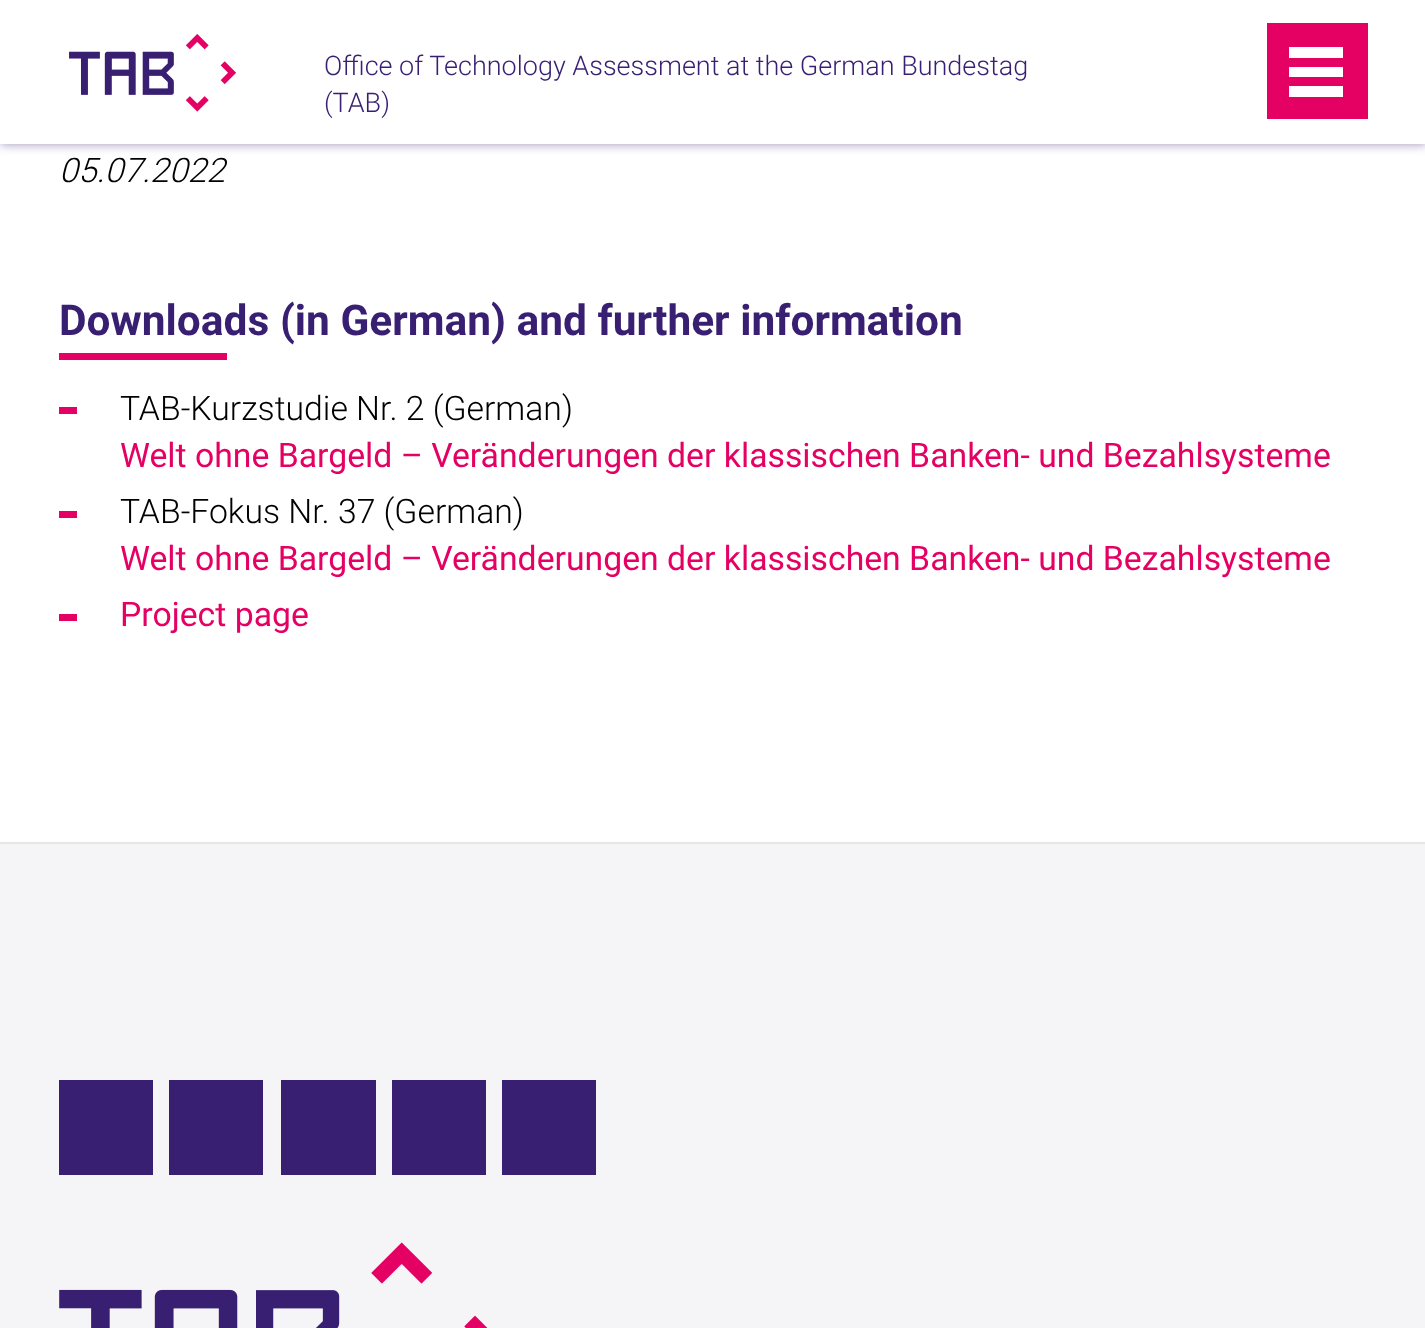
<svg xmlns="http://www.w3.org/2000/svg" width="1425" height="1328">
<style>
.a{font:300 27px Roboto;fill:#381f72}
.b{font:italic 300 33.75px Roboto;fill:#000}
.c{font:bold 42.45px Roboto;fill:#381f72}
.d{font:300 33.75px Roboto;fill:#000}
.e{font:33.75px Roboto;fill:#e50063}
</style>
<rect width="100%" height="100%" fill="#fff"/>
<path fill="#381f7280" filter="blur(5.5px)" d="M0 0h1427v144H0z"/>
<path fill="#fff" d="M0 0h1425v144H0z"/>
<image href="1.png" x="69" y="34" width="167" height="78"/>
<path fill="#e50063" d="M1267 23h101v96H1267z"/>
<path fill="#fff" d="M1289 86h54v11H1289z"/>
<path fill="#fff" d="M1289 67h54v10H1289z"/>
<path fill="#fff" d="M1289 47h54v11H1289z"/>
<path fill="#e50063" d="M59 353h168v7H59z"/>
<path fill="#e50063" d="M59 407h18v7H59z"/>
<path fill="#e50063" d="M59 511h18v7H59z"/>
<path fill="#e50063" d="M59 614h18v7H59z"/>
<path fill="#f5f5f8" d="M0 844h1425v484H0z"/>
<path fill="#e6e6e6" d="M0 842h1425v2H0z"/>
<path fill="#381f72" d="M59 1080h94v95H59z"/>
<path fill="#381f72" d="M169 1080h94v95H169z"/>
<path fill="#381f72" d="M281 1080h95v95H281z"/>
<path fill="#381f72" d="M392 1080h94v95H392z"/>
<path fill="#381f72" d="M502 1080h94v95H502z"/>
<image href="2.png" x="59" y="1242" width="429" height="86"/>
<text class="a" x="324" y="75">Office of Technology Assessment at the German Bundestag</text>
<text class="a" x="324" y="112">(TAB)</text>
<text class="b" x="59" y="182">05.07.2022</text>
<text class="c" x="59" y="335">Downloads (in German) and further information</text>
<text class="d" x="120" y="420">TAB-Kurzstudie Nr. 2 (German)</text>
<text class="e" x="120" y="467">Welt ohne Bargeld – Veränderungen der klassischen Banken- und Bezahlsysteme</text>
<text class="d" x="120" y="523">TAB-Fokus Nr. 37 (German)</text>
<text class="e" x="120" y="570">Welt ohne Bargeld – Veränderungen der klassischen Banken- und Bezahlsysteme</text>
<text class="e" x="120" y="626">Project page</text>
</svg>
